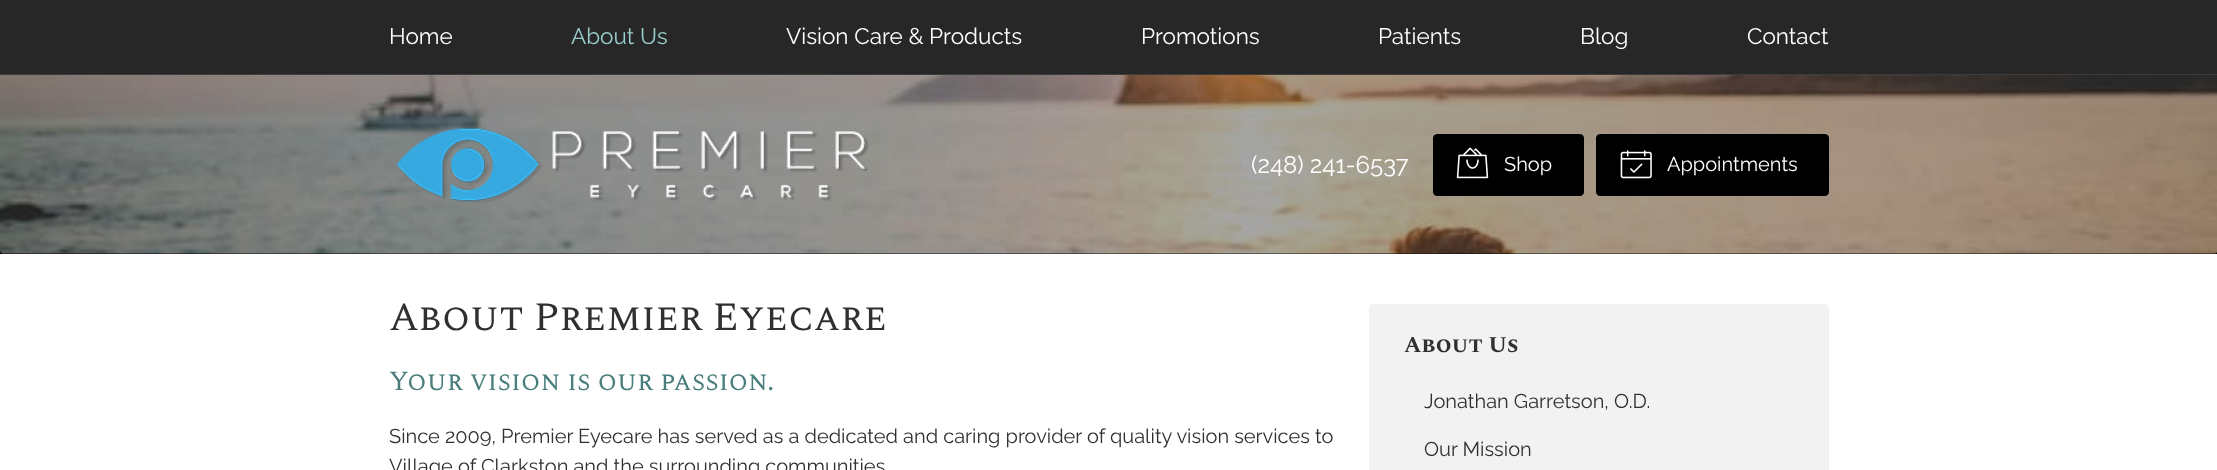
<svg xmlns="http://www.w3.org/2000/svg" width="2217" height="470">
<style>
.a{font:22.5px Raleway;fill:#fff}
.b{font:22.5px Raleway;fill:#99cdcc}
.c{font:24px Raleway;fill:#fff}
.d{font:20px Raleway;fill:#fff}
.e{font:40px Spectral SC;fill:#303030}
.f{font:27.5px Spectral SC;fill:#497e7d}
.g{font:20px Raleway;fill:#303030}
.h{font:bold 22.5px Spectral SC;fill:#303030}
</style>
<rect width="100%" height="100%" fill="#fff"/>
<path fill="#000" d="M0 250h2217v4H0z"/>
<path fill="#262726" d="M0 0h2217v74H0z"/>
<path fill="#3c3d3c" d="M0 74h2217v1H0z"/>
<image href="1.png" x="0" y="75" width="2217" height="179"/>
<image href="2.png" x="396" y="127" width="473" height="76"/>
<rect fill="#000" stroke="#000" x="1433.5" y="134.5" width="150" height="61" rx="3.5"/>
<image href="3.png" x="1456" y="147" width="33" height="32"/>
<rect fill="#000" stroke="#000" x="1596.5" y="134.5" width="232" height="61" rx="3.5"/>
<image href="4.png" x="1620" y="150" width="32" height="29"/>
<rect fill="#f2f2f2" x="1369" y="304" width="460" height="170" rx="4"/>
<text class="a" x="389" y="44">Home</text>
<text class="b" x="571" y="44">About Us</text>
<text class="a" x="786" y="44">Vision Care &amp; Products</text>
<text class="a" x="1141" y="44">Promotions</text>
<text class="a" x="1378" y="44">Patients</text>
<text class="a" x="1580" y="44">Blog</text>
<text class="a" x="1747" y="44">Contact</text>
<text class="c" x="1251" y="173">(248) 241-6537</text>
<text class="d" x="1504" y="171">Shop</text>
<text class="d" x="1667" y="171">Appointments</text>
<text class="e" x="389" y="330">About Premier Eyecare</text>
<text class="f" x="389" y="390">Your vision is our passion.</text>
<text class="g" x="389" y="443">Since 2009, Premier Eyecare has served as a dedicated and caring provider of quality vision services to</text>
<text class="g" x="389" y="473">Village of Clarkston and the surrounding communities</text>
<text class="h" x="1404" y="352">About Us</text>
<text class="g" x="1424" y="408">Jonathan Garretson, O.D.</text>
<text class="g" x="1424" y="456">Our Mission</text>
</svg>
